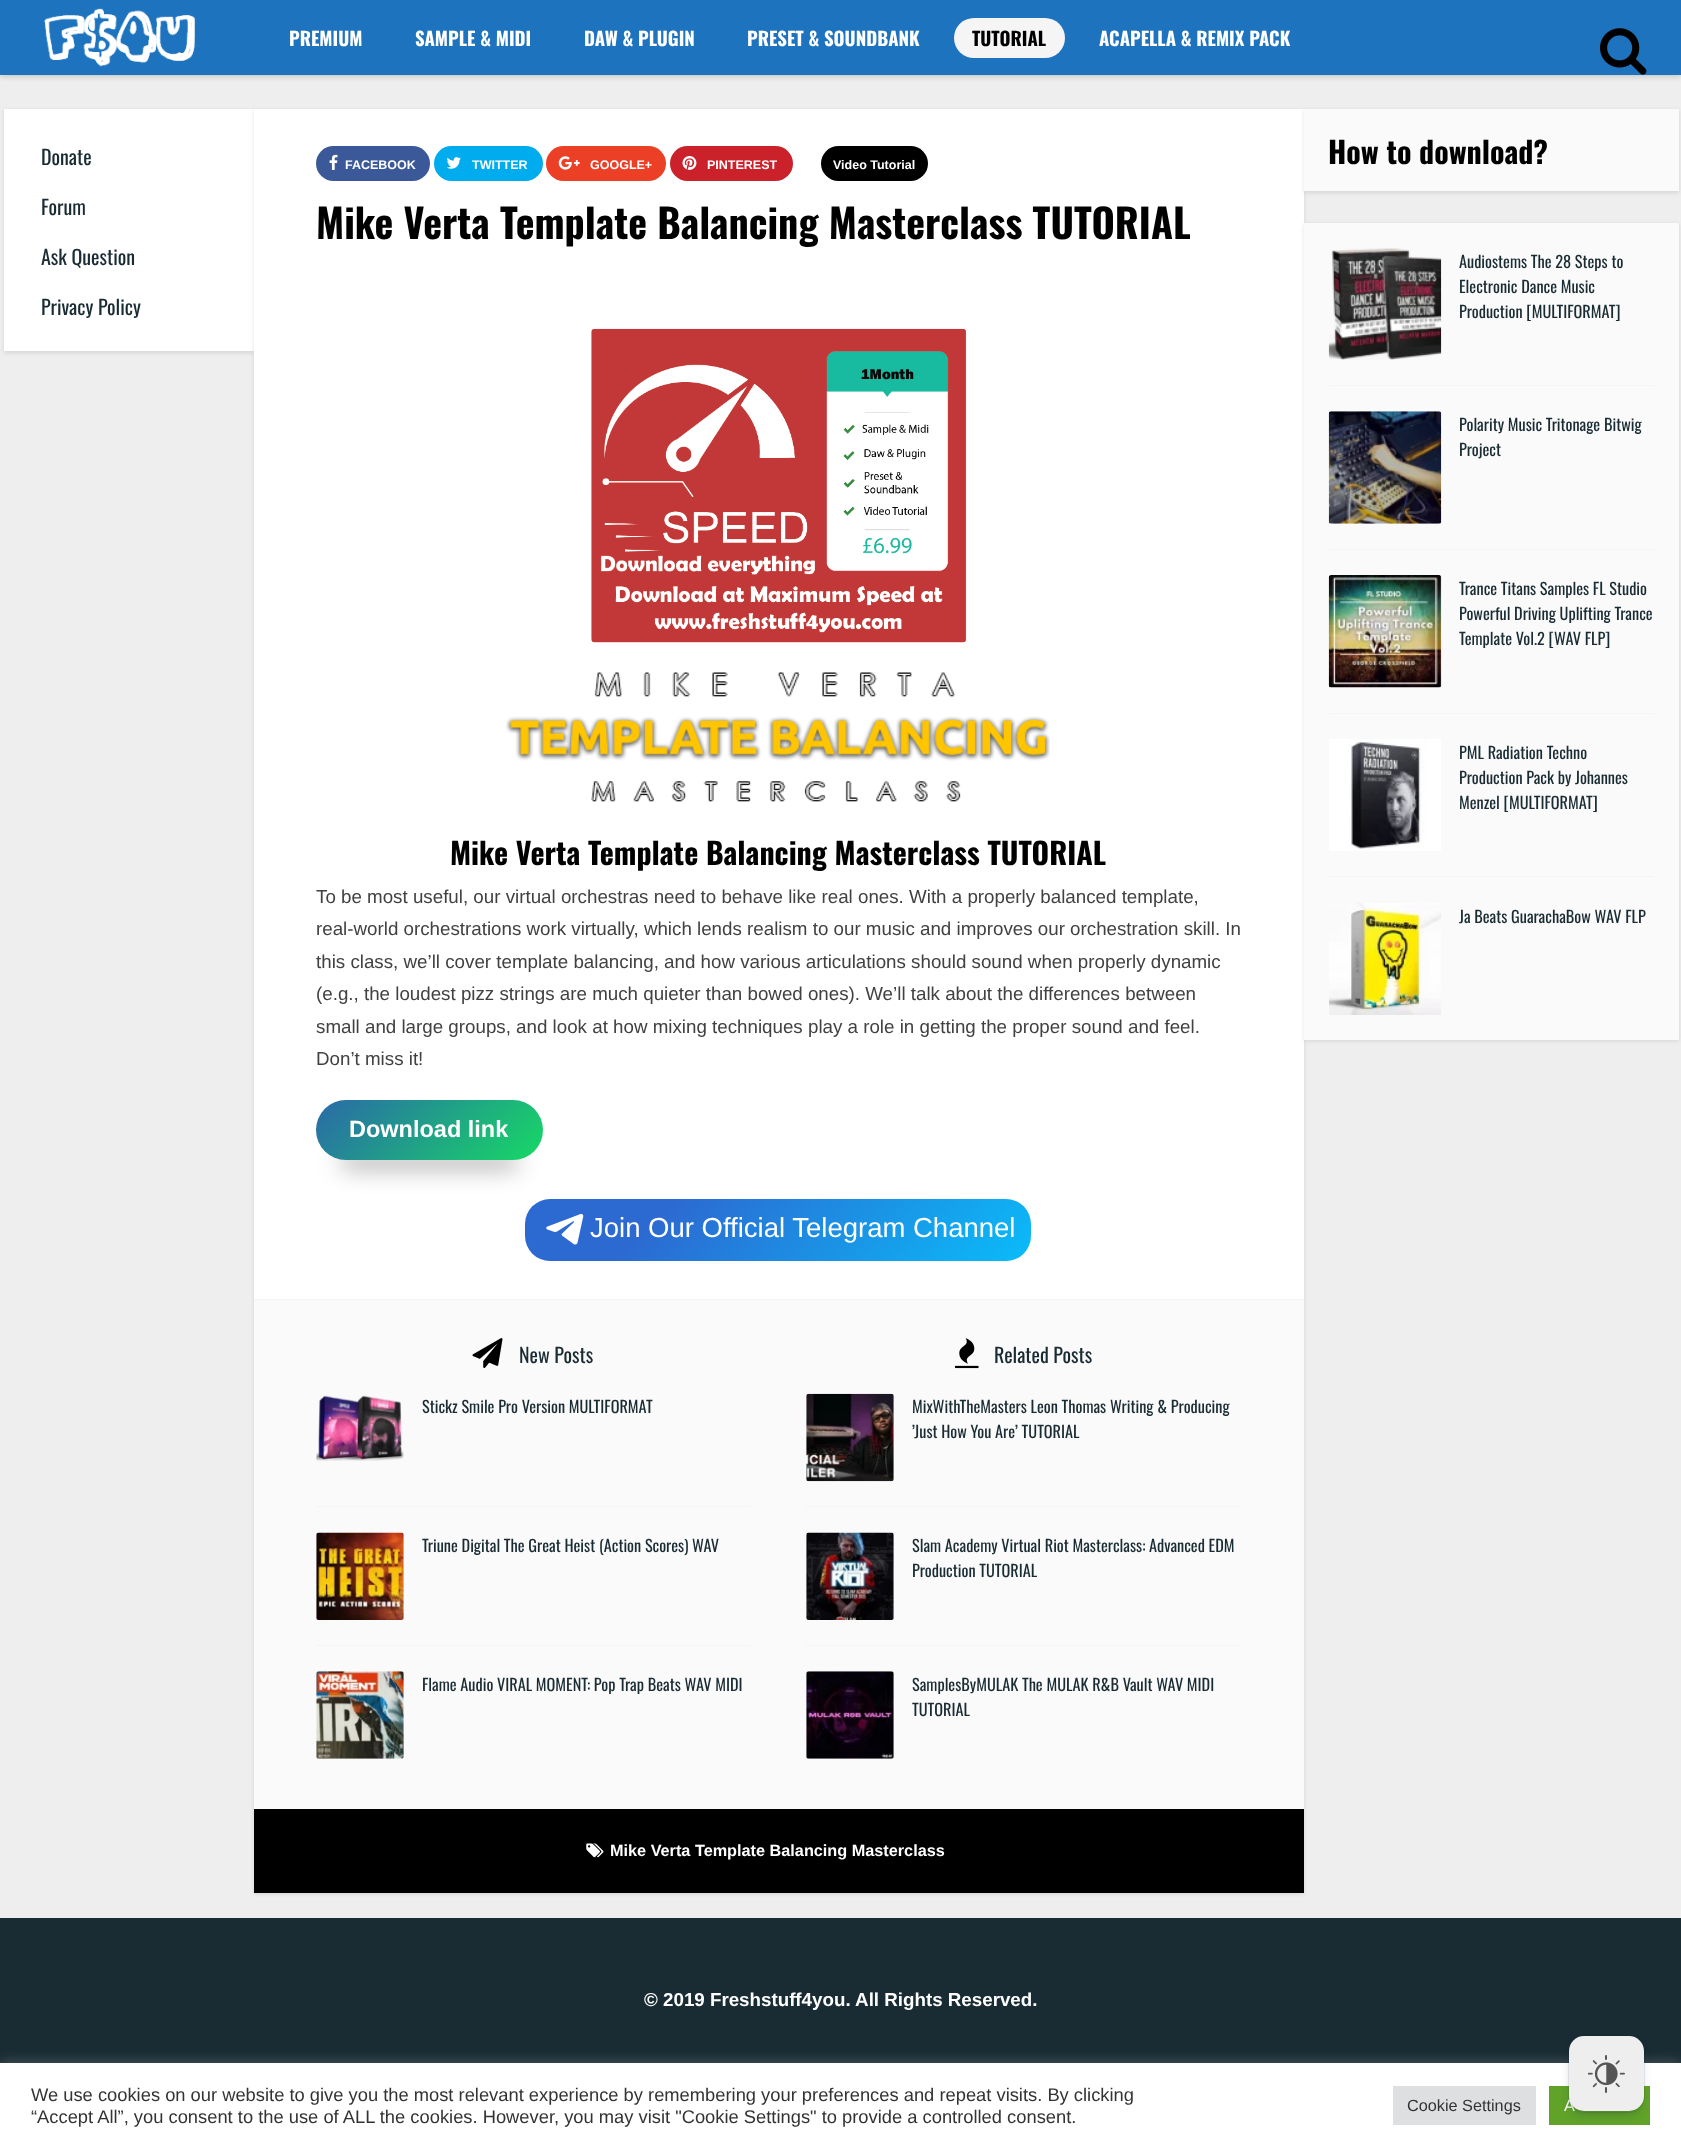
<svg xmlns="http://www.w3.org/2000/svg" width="1681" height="2148">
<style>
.a{font:bold 18.75px Oswald;fill:#fff}
.b{font:bold 18.75px Oswald;fill:#000}
.c{font:20px Oswald;fill:#192b33}
.d{font:bold 12.5px Liberation Sans;fill:#fff}
.e{font:bold 40px Oswald;fill:#000}
.f{font:bold 30px Oswald;fill:#000}
.g{font:18.75px Liberation Sans;fill:#414141}
.h{font:bold 23.5px Liberation Sans;fill:#fff}
.i{font:27.5px Liberation Sans;fill:#fff}
.j{font:16.25px Oswald;fill:#192b33}
.k{font:bold 16.25px Liberation Sans;fill:#fff}
.l{font:bold 18.75px Liberation Sans;fill:#fff}
.m{font:18.33px Liberation Sans;fill:#333}
.n{font:16.25px Liberation Sans;fill:#333}
.o{font:16.25px Liberation Sans;fill:#fff}
</style>
<defs>
<linearGradient id="g1" gradientUnits="userSpaceOnUse" x1="920" y1="1372" x2="636" y2="1088"><stop offset="0" stop-color="#0abcf9"/><stop offset="0.74" stop-color="#2c69d1"/></linearGradient>
<linearGradient id="g2" gradientUnits="userSpaceOnUse" x1="358" y1="1058" x2="501" y2="1202"><stop offset="0" stop-color="#2a69a8"/><stop offset="1" stop-color="#17d965"/></linearGradient>
</defs>
<rect width="100%" height="100%" fill="#eee"/>
<path fill="#0000001a" filter="blur(3px)" d="M0 1h1681v75H0z"/>
<path fill="#0000001a" filter="blur(3px)" d="M0 1h1681v75H0z"/>
<path fill="#1e73be" d="M0 0h1681v75H0z"/>
<image href="1.png" x="44" y="8" width="151" height="59"/>
<rect fill="#f5f5f5" x="954" y="18" width="111" height="40" rx="20"/>
<image href="2.png" x="1600" y="28" width="47" height="47"/>
<path fill="#0000001a" filter="blur(2px)" d="M4 110h250v243H4z"/>
<path fill="#fff" d="M4 109h250v242H4z"/>
<path fill="#0000001a" filter="blur(2px)" d="M254 110h1050v1784H254z"/>
<path fill="#fff" d="M254 109h1050v1190H254z"/>
<rect fill="#3b5998" x="316" y="146" width="114" height="35" rx="17.5"/>
<image href="3.png" x="329" y="154" width="9" height="16"/>
<rect fill="#00aced" x="434" y="146" width="109" height="35" rx="17.5"/>
<image href="4.png" x="446" y="157" width="15" height="12"/>
<rect fill="#eb4026" x="546" y="146" width="120" height="35" rx="17.5"/>
<image href="5.png" x="558" y="156" width="22" height="14"/>
<rect fill="#ca212a" x="670" y="146" width="123" height="35" rx="17.5"/>
<image href="6.png" x="682" y="156" width="15" height="14"/>
<rect fill="#000" x="821" y="146" width="107" height="35" rx="17.5"/>
<image href="7.png" x="591" y="328" width="376" height="315"/>
<image href="8.png" x="506" y="672" width="544" height="130"/>
<rect fill="url(#g1)" x="525" y="1199" width="506" height="62" rx="25"/>
<rect fill="#00000080" filter="blur(12.5px)" x="341" y="1156" width="177" height="10" rx="5"/>
<rect fill="url(#g2)" x="316" y="1100" width="227" height="60" rx="30"/>
<image href="9.png" x="546" y="1213" width="38" height="32"/>
<path fill="#fafafa" d="M254 1300h1050v509H254z"/>
<path fill="#f5f4f4" d="M254 1299h1050v1H254z"/>
<image href="10.png" x="472" y="1338" width="31" height="30"/>
<path fill="#f5f4f4" d="M316 1506h434v1H316z"/>
<image href="11.png" x="316" y="1395" width="88" height="66"/>
<path fill="#f5f4f4" d="M316 1645h434v1H316z"/>
<image href="12.png" x="316" y="1532" width="88" height="88"/>
<image href="13.png" x="316" y="1671" width="88" height="88"/>
<image href="14.png" x="955" y="1338" width="24" height="31"/>
<path fill="#f5f4f4" d="M806 1506h434v1H806z"/>
<image href="15.png" x="806" y="1393" width="88" height="89"/>
<path fill="#f5f4f4" d="M806 1645h434v1H806z"/>
<image href="16.png" x="806" y="1532" width="88" height="88"/>
<image href="17.png" x="806" y="1671" width="88" height="88"/>
<path fill="#000" d="M254 1809h1050v84H254z"/>
<image href="18.png" x="586" y="1843" width="18" height="15"/>
<path fill="#0000001a" filter="blur(2px)" d="M1304 110h375v83H1304z"/>
<path fill="#fafafa" d="M1304 109h375v82H1304z"/>
<path fill="#0000001a" filter="blur(2px)" d="M1304 224h375v817H1304z"/>
<path fill="#fafafa" d="M1304 223h375v817H1304z"/>
<path fill="#f5f4f4" d="M1329 385h325v1H1329z"/>
<image href="19.png" x="1328" y="248" width="114" height="112"/>
<path fill="#f5f4f4" d="M1329 549h325v1H1329z"/>
<image href="20.png" x="1328" y="411" width="114" height="113"/>
<path fill="#f5f4f4" d="M1329 713h325v1H1329z"/>
<image href="21.png" x="1328" y="575" width="114" height="113"/>
<path fill="#f5f4f4" d="M1329 876h325v1H1329z"/>
<image href="22.png" x="1329" y="739" width="112" height="112"/>
<image href="23.png" x="1329" y="903" width="112" height="112"/>
<path fill="#192b33" d="M0 1918h1681v145H0z"/>
<path fill="#acabab4d" filter="blur(6px)" d="M0 2061h1681v87H0z"/>
<path fill="#fff" d="M0 2063h1681v85H0z"/>
<path fill="#dedfe0" d="M1393 2086h143v39H1393z"/>
<path fill="#61a229" d="M1549 2086h101v39H1549z"/>
<text class="a" x="289" y="46">PREMIUM</text>
<text class="a" x="415" y="46">SAMPLE &amp; MIDI</text>
<text class="a" x="584" y="46">DAW &amp; PLUGIN</text>
<text class="a" x="747" y="46">PRESET &amp; SOUNDBANK</text>
<text class="b" x="972" y="46">TUTORIAL</text>
<text class="a" x="1099" y="46">ACAPELLA &amp; REMIX PACK</text>
<text class="c" x="41" y="165">Donate</text>
<text class="c" x="41" y="215">Forum</text>
<text class="c" x="41" y="265">Ask Question</text>
<text class="c" x="41" y="315">Privacy Policy</text>
<text class="d" x="345" y="169">FACEBOOK</text>
<text class="d" x="472" y="169">TWITTER</text>
<text class="d" x="590" y="169">GOOGLE+</text>
<text class="d" x="707" y="169">PINTEREST</text>
<text class="d" x="833" y="169">Video Tutorial</text>
<text class="e" x="316" y="239">Mike Verta Template Balancing Masterclass TUTORIAL</text>
<text class="f" x="450" y="865">Mike Verta Template Balancing Masterclass TUTORIAL</text>
<text class="g" x="316" y="903">To be most useful, our virtual orchestras need to behave like real ones. With a properly balanced template,</text>
<text class="g" x="316" y="935">real-world orchestrations work virtually, which lends realism to our music and improves our orchestration skill. In</text>
<text class="g" x="316" y="968">this class, we’ll cover template balancing, and how various articulations should sound when properly dynamic</text>
<text class="g" x="316" y="1000">(e.g., the loudest pizz strings are much quieter than bowed ones). We’ll talk about the differences between</text>
<text class="g" x="316" y="1033">small and large groups, and look at how mixing techniques play a role in getting the proper sound and feel.</text>
<text class="g" x="316" y="1065">Don’t miss it!</text>
<text class="h" x="349" y="1137">Download link</text>
<text class="i" x="590" y="1237">Join Our Official Telegram Channel</text>
<text class="c" x="519" y="1363">New Posts</text>
<text class="j" x="422" y="1413">Stickz Smile Pro Version MULTIFORMAT</text>
<text class="j" x="422" y="1552">Triune Digital The Great Heist (Action Scores) WAV</text>
<text class="j" x="422" y="1691">Flame Audio VIRAL MOMENT: Pop Trap Beats WAV MIDI</text>
<text class="c" x="994" y="1363">Related Posts</text>
<text class="j" x="912" y="1413">MixWithTheMasters Leon Thomas Writing &amp; Producing</text>
<text class="j" x="912" y="1438">’Just How You Are’ TUTORIAL</text>
<text class="j" x="912" y="1552">Slam Academy Virtual Riot Masterclass: Advanced EDM</text>
<text class="j" x="912" y="1577">Production TUTORIAL</text>
<text class="j" x="912" y="1691">SamplesByMULAK The MULAK R&amp;B Vault WAV MIDI</text>
<text class="j" x="912" y="1716">TUTORIAL</text>
<text class="k" x="610" y="1856">Mike Verta Template Balancing Masterclass</text>
<text class="f" x="1328" y="164">How to download?</text>
<text class="j" x="1459" y="268">Audiostems The 28 Steps to</text>
<text class="j" x="1459" y="293">Electronic Dance Music</text>
<text class="j" x="1459" y="318">Production [MULTIFORMAT]</text>
<text class="j" x="1459" y="431">Polarity Music Tritonage Bitwig</text>
<text class="j" x="1459" y="456">Project</text>
<text class="j" x="1459" y="595">Trance Titans Samples FL Studio</text>
<text class="j" x="1459" y="620">Powerful Driving Uplifting Trance</text>
<text class="j" x="1459" y="645">Template Vol.2 [WAV FLP]</text>
<text class="j" x="1459" y="759">PML Radiation Techno</text>
<text class="j" x="1459" y="784">Production Pack by Johannes</text>
<text class="j" x="1459" y="809">Menzel [MULTIFORMAT]</text>
<text class="j" x="1459" y="923">Ja Beats GuarachaBow WAV FLP</text>
<text class="l" x="644" y="2006">© 2019 Freshstuff4you. All Rights Reserved.</text>
<text class="m" x="31" y="2101">We use cookies on our website to give you the most relevant experience by remembering your preferences and repeat visits. By clicking</text>
<text class="m" x="31" y="2123">“Accept All”, you consent to the use of ALL the cookies. However, you may visit "Cookie Settings" to provide a controlled consent.</text>
<text class="n" x="1407" y="2111">Cookie Settings</text>
<text class="o" x="1564" y="2111">A</text>
<rect fill="none" stroke="#091e4214" x="1568.5" y="2035.5" width="76" height="77" rx="15.5"/>
<rect fill="#091e4240" filter="blur(5px)" x="1571" y="2044" width="70" height="70" rx="13"/>
<rect fill="#eee" x="1569" y="2036" width="75" height="75" rx="15"/>
<image href="24.png" x="1588" y="2055" width="37" height="38"/>
</svg>
